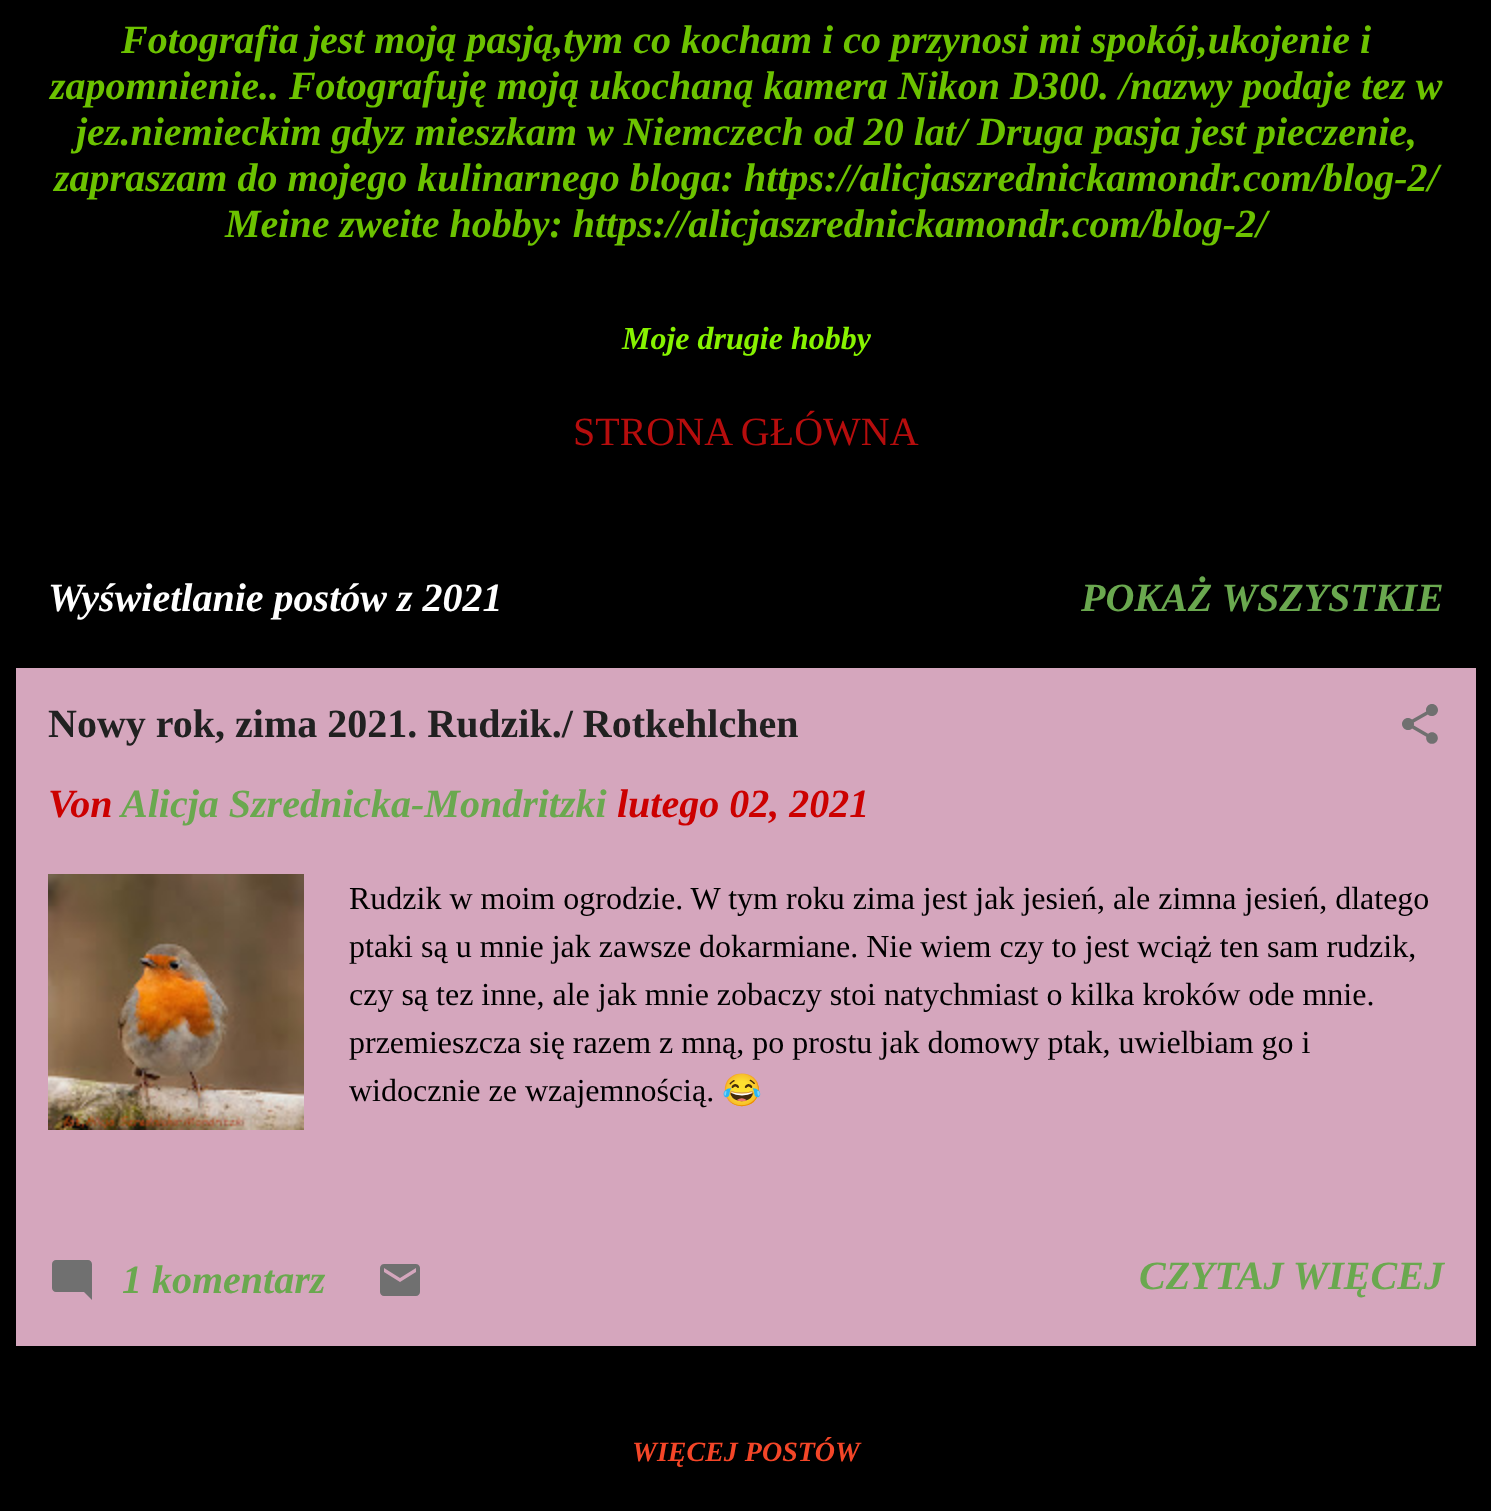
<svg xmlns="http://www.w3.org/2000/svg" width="1491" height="1511">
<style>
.a{font:italic bold 40px Liberation Serif;fill:#6cc200}
.b{font:italic bold 32px Liberation Serif;fill:#87f300}
.c{font:40px Liberation Serif;fill:#b60d0d}
.d{font:italic bold 40px Liberation Serif;fill:#fff}
.e{font:italic bold 40px Liberation Serif;fill:#6aa84f}
.f{font:bold 40px Liberation Serif;fill:#212121}
.g{font:italic bold 40px Liberation Serif;fill:#c00}
.h{font:32px Liberation Serif;fill:#000}
.i{font:32px Noto Color Emoji;fill:#000}
.j{font:italic bold 28px Liberation Serif;fill:#f44628}
</style>
<rect width="100%" height="100%" fill="#000"/>
<path fill="#d5a6bd" d="M16 668h1460v678H16z"/>
<image href="1.png" x="1402" y="704" width="36" height="40"/>
<image href="2.png" x="48" y="874" width="256" height="256"/>
<image href="3.png" x="52" y="1260" width="40" height="40"/>
<image href="4.png" x="380" y="1264" width="40" height="32"/>
<text class="a" x="121" y="53">Fotografia jest moją pasją,tym co kocham i co przynosi mi spokój,ukojenie i</text>
<text class="a" x="50" y="99">zapomnienie.. Fotografuję moją ukochaną kamera Nikon D300. /nazwy podaje tez w</text>
<text class="a" x="76" y="145">jez.niemieckim gdyz mieszkam w Niemczech od 20 lat/ Druga pasja jest pieczenie,</text>
<text class="a" x="54" y="191">zapraszam do mojego kulinarnego bloga: https://alicjaszrednickamondr.com/blog-2/</text>
<text class="a" x="225" y="237">Meine zweite hobby: https://alicjaszrednickamondr.com/blog-2/</text>
<text class="b" x="622" y="349">Moje drugie hobby</text>
<text class="c" x="573" y="445">STRONA GŁÓWNA</text>
<text class="d" x="48" y="611">Wyświetlanie postów z 2021</text>
<text class="e" x="1081" y="611">POKAŻ WSZYSTKIE</text>
<text class="f" x="48" y="737">Nowy rok, zima 2021. Rudzik./ Rotkehlchen</text>
<text class="g" x="48" y="817">Von</text>
<text class="e" x="121" y="817">Alicja Szrednicka-Mondritzki</text>
<text class="g" x="617" y="817">lutego 02, 2021</text>
<text class="h" x="349" y="909">Rudzik w moim ogrodzie. W tym roku zima jest jak jesień, ale zimna jesień, dlatego</text>
<text class="h" x="349" y="957">ptaki są u mnie jak zawsze dokarmiane. Nie wiem czy to jest wciąż ten sam rudzik,</text>
<text class="h" x="349" y="1005">czy są tez inne, ale jak mnie zobaczy stoi natychmiast o kilka kroków ode mnie.</text>
<text class="h" x="349" y="1053">przemieszcza się razem z mną, po prostu jak domowy ptak, uwielbiam go i</text>
<text class="h" x="349" y="1101">widocznie ze wzajemnością.</text>
<text class="i" x="722" y="1101">😂</text>
<text class="e" x="122" y="1293">1 komentarz</text>
<text class="e" x="1139" y="1289">CZYTAJ WIĘCEJ</text>
<text class="j" x="632" y="1461">WIĘCEJ POSTÓW</text>
</svg>
